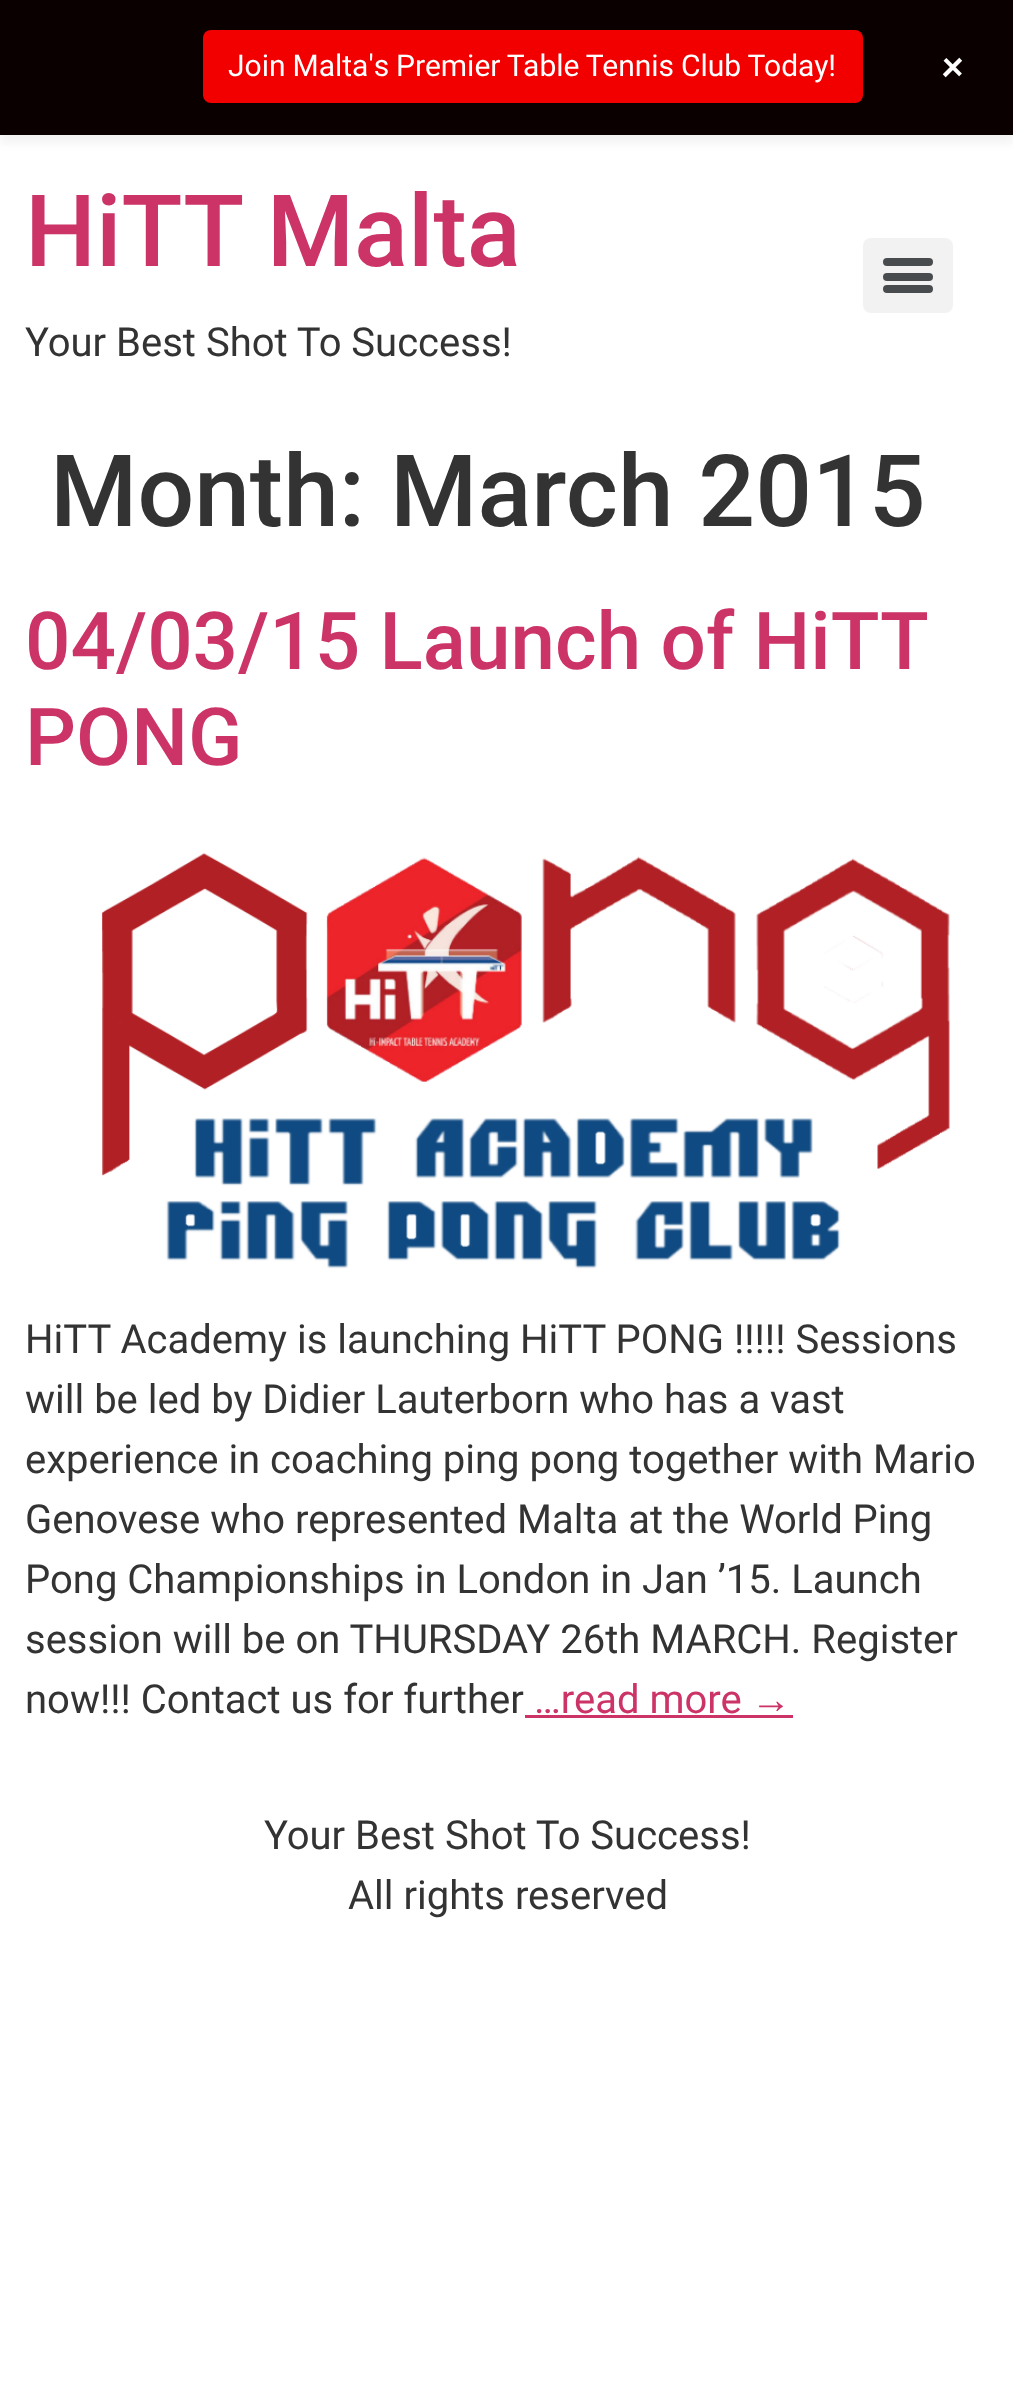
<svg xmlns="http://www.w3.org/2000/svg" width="1013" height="2402">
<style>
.a{font:30px Roboto;fill:#fff}
.b{font:45px Roboto;fill:#fff}
.c{font:500 100px Roboto;fill:#c36}
.d{font:40px Roboto;fill:#333}
.e{font:500 100px Roboto;fill:#333}
.f{font:500 80px Roboto;fill:#c36}
.g{font:40px Roboto;fill:#c36}
.h{font:40px Liberation Sans;fill:#c36}
</style>
<rect width="100%" height="100%" fill="#fff"/>
<path fill="#0000000d" filter="blur(5px)" d="M0 8h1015v135H0z"/>
<path fill="#0a0000" d="M0 0h1013v135H0z"/>
<rect fill="#f20000" x="203" y="30" width="660" height="73" rx="8"/>
<rect fill="#f2f2f2" x="863" y="238" width="90" height="75" rx="8"/>
<rect fill="#494c4f" x="883" y="273" width="50" height="8" rx="4"/>
<rect fill="#494c4f" x="883" y="258" width="50" height="8" rx="4"/>
<rect fill="#494c4f" x="883" y="285" width="50" height="8" rx="4"/>
<image href="1.png" x="102" y="853" width="848" height="416"/>
<path fill="#c36" d="M525 1715h268v3H525z"/>
<text class="a" x="228" y="76" word-spacing="-0.5">Join Malta's Premier Table Tennis Club Today!</text>
<text class="b" x="933" y="69" transform="rotate(45 933 69)">+</text>
<text class="c" x="25" y="266">HiTT Malta</text>
<text class="d" x="25" y="356">Your Best Shot To Success!</text>
<text class="e" x="50" y="526">Month: March 2015</text>
<text class="f" x="25" y="669" word-spacing="-0.5">04/03/15 Launch of HiTT</text>
<text class="f" x="25" y="765">PONG</text>
<text class="d" x="25" y="1353">HiTT Academy is launching HiTT PONG !!!!! Sessions</text>
<text class="d" x="25" y="1413">will be led by Didier Lauterborn who has a vast</text>
<text class="d" x="25" y="1473">experience in coaching ping pong together with Mario</text>
<text class="d" x="25" y="1533">Genovese who represented Malta at the World Ping</text>
<text class="d" x="25" y="1593">Pong Championships in London in Jan ’15. Launch</text>
<text class="d" x="25" y="1653">session will be on THURSDAY 26th MARCH. Register</text>
<text class="d" x="25" y="1713">now!!! Contact us for further</text>
<text class="g" x="534" y="1713">…read more</text>
<text class="h" x="751" y="1713">→</text>
<text class="d" x="264" y="1849">Your Best Shot To Success!</text>
<text class="d" x="348" y="1909">All rights reserved</text>
</svg>
